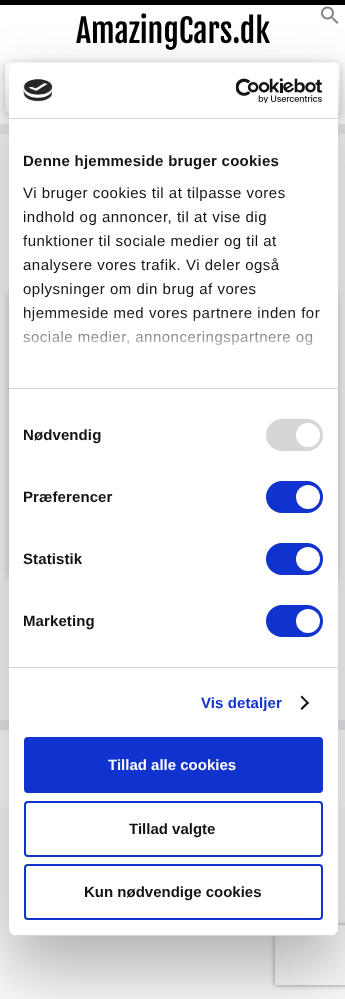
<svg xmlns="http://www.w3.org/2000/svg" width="345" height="999">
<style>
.a{font:32px Fjalla One;fill:#000}
.b{font:bold 15px Liberation Sans;letter-spacing:0.25px;fill:#141414}
.c{font:15px Liberation Sans;letter-spacing:0.5px;fill:#141414}
.d{font:bold 15px Liberation Sans;letter-spacing:0.1px;fill:#141414}
.e{font:bold 15px Liberation Sans;letter-spacing:0.1px;fill:#1032cf}
.f{font:bold 15px Liberation Sans;fill:#fff}
.g{font:bold 15px Liberation Sans;fill:#141414}
</style>
<defs>
<linearGradient id="g1" gradientUnits="userSpaceOnUse" x1="173" y1="62" x2="173" y2="113"><stop offset="0" stop-color="#fff"/><stop offset="1" stop-color="#f2f2f2"/></linearGradient>
<clipPath id="clip1"><path d="M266 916h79v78h-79zm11 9h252c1 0 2 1 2 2v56c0 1-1 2-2 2h-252c-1 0-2-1-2-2v-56c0-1 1-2 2-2z" clip-rule="evenodd"/></clipPath>
<clipPath id="clip2"><rect x="9" y="63" width="329" height="873" rx="8"/></clipPath>
<linearGradient id="g2" gradientUnits="userSpaceOnUse" x1="167" y1="388" x2="167" y2="313"><stop offset="0" stop-color="#fff"/><stop offset="0.5" stop-color="#fff" stop-opacity="0.8"/><stop offset="1" stop-color="#fff" stop-opacity="0"/></linearGradient>
</defs>
<rect width="100%" height="100%" fill="#fafafa"/>
<path fill="#fff" d="M0 5h345v119H0z"/>
<path fill="#000" d="M0 0h345v5H0z"/>
<path fill="#e9eaee" d="M0 124h345v10H0z"/>
<rect fill="#00000040" filter="blur(5px)" x="5" y="64" width="335" height="51" rx="4"/>
<rect fill="url(#g1)" x="5" y="62" width="335" height="51" rx="4"/>
<path fill="#ccc" filter="blur(3px)" d="M8 293h329v285H8z"/>
<path fill="#e9eaee" d="M0 720h345v10H0z"/>
<path fill="#fff" d="M0 730h345v77H0z"/>
<image href="1.png" x="321" y="6" width="18" height="18"/>
<rect fill="#0000004d" filter="blur(34px)" x="9" y="95" width="329" height="873" rx="8"/>
<g clip-path="url(#clip1)">
<rect fill="#808080" filter="blur(2.5px)" x="275" y="925" width="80" height="60" rx="2"/>
</g>
<rect fill="#fff" x="9" y="63" width="329" height="873" rx="8"/>
<path fill="#d6d6d6" d="M9 118h329v1H9z"/>
<image href="2.png" x="23" y="79" width="30" height="23"/>
<image href="3.png" x="236" y="78" width="86" height="25"/>
<path fill="#d6d6d6" d="M9 388h329v1H9z"/>
<path fill="#d6d6d6" d="M9 667h329v1H9z"/>
<rect fill="#d6d6d6" x="266" y="419" width="57" height="32" rx="16"/>
<circle fill="#fff" cx="308" cy="435" r="12"/>
<rect fill="#1032cf" x="266" y="481" width="57" height="32" rx="16"/>
<circle fill="#fff" cx="308" cy="497" r="12"/>
<rect fill="#1032cf" x="266" y="543" width="57" height="32" rx="16"/>
<circle fill="#fff" cx="308" cy="559" r="12"/>
<rect fill="#1032cf" x="266" y="605" width="57" height="32" rx="16"/>
<circle fill="#fff" cx="308" cy="621" r="12"/>
<path fill="#141414" d="M302 695.5l7 7.5l-1.5 1l-7-7z"/>
<path fill="#141414" d="M307.5 701.5l1.5 1.5l-7 7l-1.5-1.5z"/>
<g clip-path="url(#clip2)">
<path fill="#d6d6d6" d="M9 935h329v1H9z"/>
</g>
<rect fill="#1032cf" stroke="#1032cf" stroke-width="2" x="25" y="738" width="297" height="54" rx="3"/>
<rect fill="none" stroke="#1032cf" stroke-width="2" x="25" y="802" width="297" height="54" rx="3"/>
<rect fill="none" stroke="#1032cf" stroke-width="2" x="25" y="865" width="297" height="54" rx="3"/>
<text class="a" x="76" y="43">AmazingCars.dk</text>
<text class="b" x="23" y="166">Denne hjemmeside bruger cookies</text>
<text class="c" x="23" y="198">Vi bruger cookies til at tilpasse vores</text>
<text class="c" x="23" y="222">indhold og annoncer, til at vise dig</text>
<text class="c" x="23" y="246">funktioner til sociale medier og til at</text>
<text class="c" x="23" y="270">analysere vores trafik. Vi deler også</text>
<text class="c" x="23" y="294">oplysninger om din brug af vores</text>
<text class="c" x="23" y="318">hjemmeside med vores partnere inden for</text>
<text class="c" x="23" y="342">sociale medier, annonceringspartnere og</text>
<path fill="url(#g2)" d="M23 314h294v32H23z"/>
<text class="d" x="23" y="440">Nødvendig</text>
<text class="d" x="23" y="502">Præferencer</text>
<text class="d" x="23" y="564">Statistik</text>
<text class="d" x="23" y="626">Marketing</text>
<text class="e" x="201" y="708">Vis detaljer</text>
<text class="f" x="108" y="770">Tillad alle cookies</text>
<text class="g" x="129" y="834">Tillad valgte</text>
<text class="g" x="84" y="897">Kun nødvendige cookies</text>
</svg>
